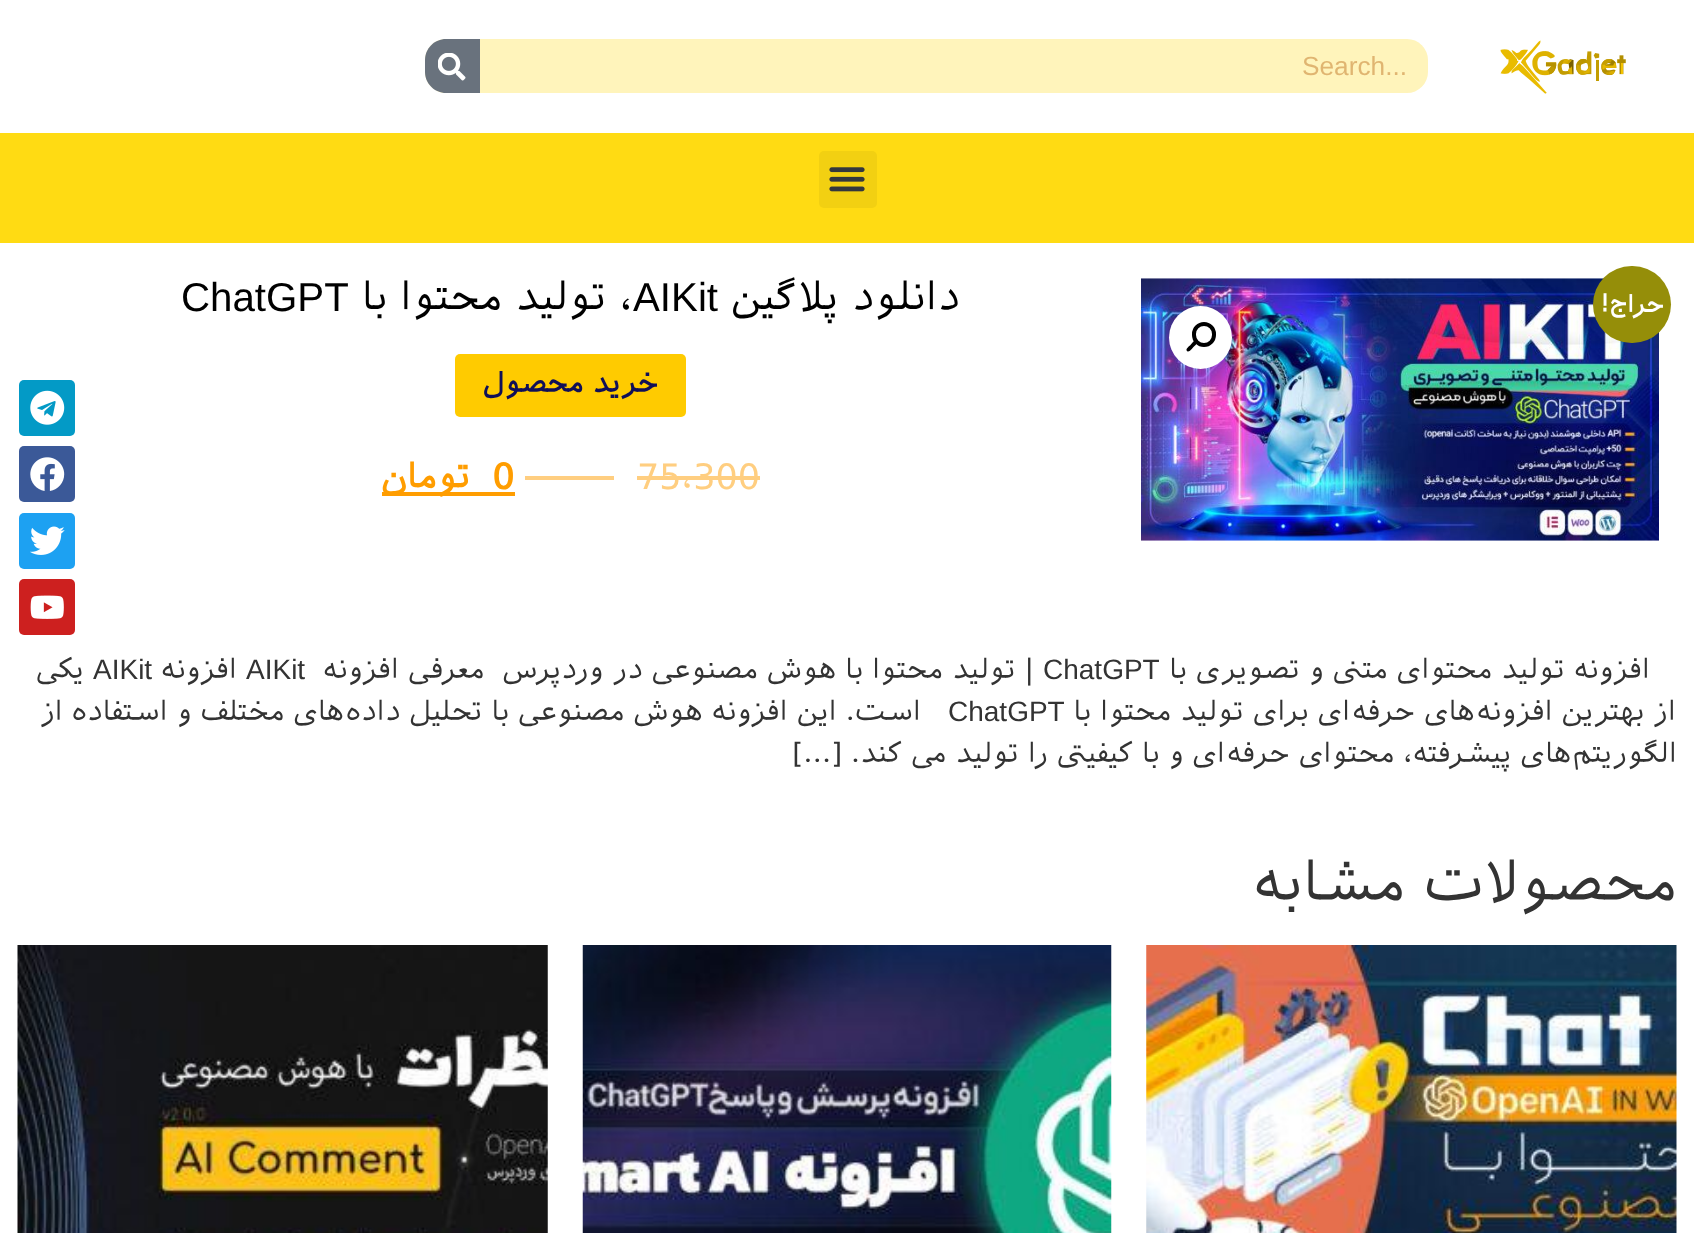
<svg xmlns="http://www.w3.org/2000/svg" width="1694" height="1233">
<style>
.a{font:26.25px Liberation Sans;fill:#e0b571}
.b{font:bold 24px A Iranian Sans;direction:rtl;fill:#fff}
.c{font:40.25px A Iranian Sans;direction:rtl;fill:#000}
.d{font:40.25px Liberation Sans;fill:#000}
.e{font:bold 28px A Iranian Sans;direction:rtl;fill:#100f58}
.f{font:35px A Iranian Sans;fill:#ffce80}
.g{font:bold 35px A Iranian Sans;fill:#ff9d00}
.h{font:bold 35px A Iranian Sans;direction:rtl;fill:#ff9d00}
.i{font:28px A Iranian Sans;direction:rtl;fill:#333}
.j{font:28px Liberation Sans;fill:#333}
.k{font:56px A Iranian Sans;direction:rtl;fill:#333}
</style>
<rect width="100%" height="100%" fill="#fff"/>
<image href="1.png" x="1500" y="40" width="126" height="54"/>
<rect fill="#fff4bb" x="425" y="39" width="1003" height="54" rx="21"/>
<path fill="#69727d" d="M446 39h34v54h-34c-11.5 0-21-9.5-21-21v-12c0-11.5 9.5-21 21-21z"/>
<image href="2.png" x="438" y="53" width="28" height="28"/>
<rect fill="#039ac6" x="19" y="380" width="56" height="56" rx="5"/>
<image href="3.png" x="30" y="390" width="35" height="35"/>
<rect fill="#3b5998" x="19" y="446" width="56" height="56" rx="5"/>
<image href="4.png" x="30" y="457" width="35" height="34"/>
<rect fill="#1da1f2" x="19" y="513" width="56" height="56" rx="5"/>
<image href="5.png" x="30" y="526" width="35" height="29"/>
<rect fill="#cd201f" x="19" y="579" width="56" height="56" rx="5"/>
<image href="6.png" x="30" y="595" width="34" height="24"/>
<path fill="#ffdb13" d="M0 133h1694v110H0z"/>
<rect fill="#f2d012" x="819" y="151" width="58" height="57" rx="5"/>
<image href="7.png" x="829" y="167" width="36" height="25"/>
<image href="8.png" x="1141" y="278" width="518" height="263"/>
<circle fill="#fff" cx="1200.5" cy="337.5" r="31.5"/>
<rect fill="none" stroke="#000" stroke-width="4" x="1194" y="324" width="20" height="21" rx="10"/>
<path fill="#000" d="M1196.5 341c2 2-2.5 5.5-3.5 6.5c-1 1-4 5.5-6 3.5c-2-2 2.5-5 3.5-6c1-1 4-6 6-4z"/>
<rect fill="#958e09" x="1593" y="266" width="78" height="77" rx="38.5"/>
<rect fill="#ffcb00" x="455" y="354" width="231" height="63" rx="5"/>
<path fill="#ffce80" d="M637 476h123v4H637z"/>
<path fill="#ffce80" d="M525 476h89v4H525z"/>
<path fill="#ff9d00" d="M382 492h133v4H382z"/>
<image href="9.png" x="1146" y="945" width="531" height="288"/>
<image href="10.png" x="582" y="945" width="530" height="288"/>
<image href="11.png" x="17" y="945" width="531" height="288"/>
<text class="a" x="1302" y="75">Search...</text>
<text class="b" x="1664" y="313">حراج!</text>
<text class="c" x="960" y="311">دانلود پلاگین</text>
<text class="d" x="633" y="311">AIKit</text>
<text class="c" x="633" y="311">، تولید محتوا با</text>
<text class="d" x="181" y="311">ChatGPT</text>
<text class="e" x="658" y="393">خرید محصول</text>
<text class="f" x="637" y="489">75،300</text>
<text class="g" x="492" y="489">0</text>
<text class="h" x="470" y="489">تومان</text>
<text class="i" x="1650" y="679">افزونه تولید محتوای متنی و تصویری با</text>
<text class="j" x="1043" y="679">ChatGPT</text>
<text class="i" xml:space="preserve" x="1034" y="679">| تولید محتوا با هوش مصنوعی در وردپرس  معرفی افزونه</text>
<text class="j" x="246" y="679">AIKit</text>
<text class="i" x="237" y="679">افزونه</text>
<text class="j" x="93" y="679">AIKit</text>
<text class="i" x="84" y="679">یکی</text>
<text class="i" x="1676" y="721">از بهترین افزونه‌های حرفه‌ای برای تولید محتوا با</text>
<text class="j" x="948" y="721">ChatGPT</text>
<text class="i" x="921" y="721">است. این افزونه هوش مصنوعی با تحلیل داده‌های مختلف و استفاده از</text>
<text class="i" x="1677" y="763">الگوریتم‌های پیشرفته، محتوای حرفه‌ای و با کیفیتی را تولید می کند. […]</text>
<text class="k" x="1677" y="902">محصولات مشابه</text>
</svg>
